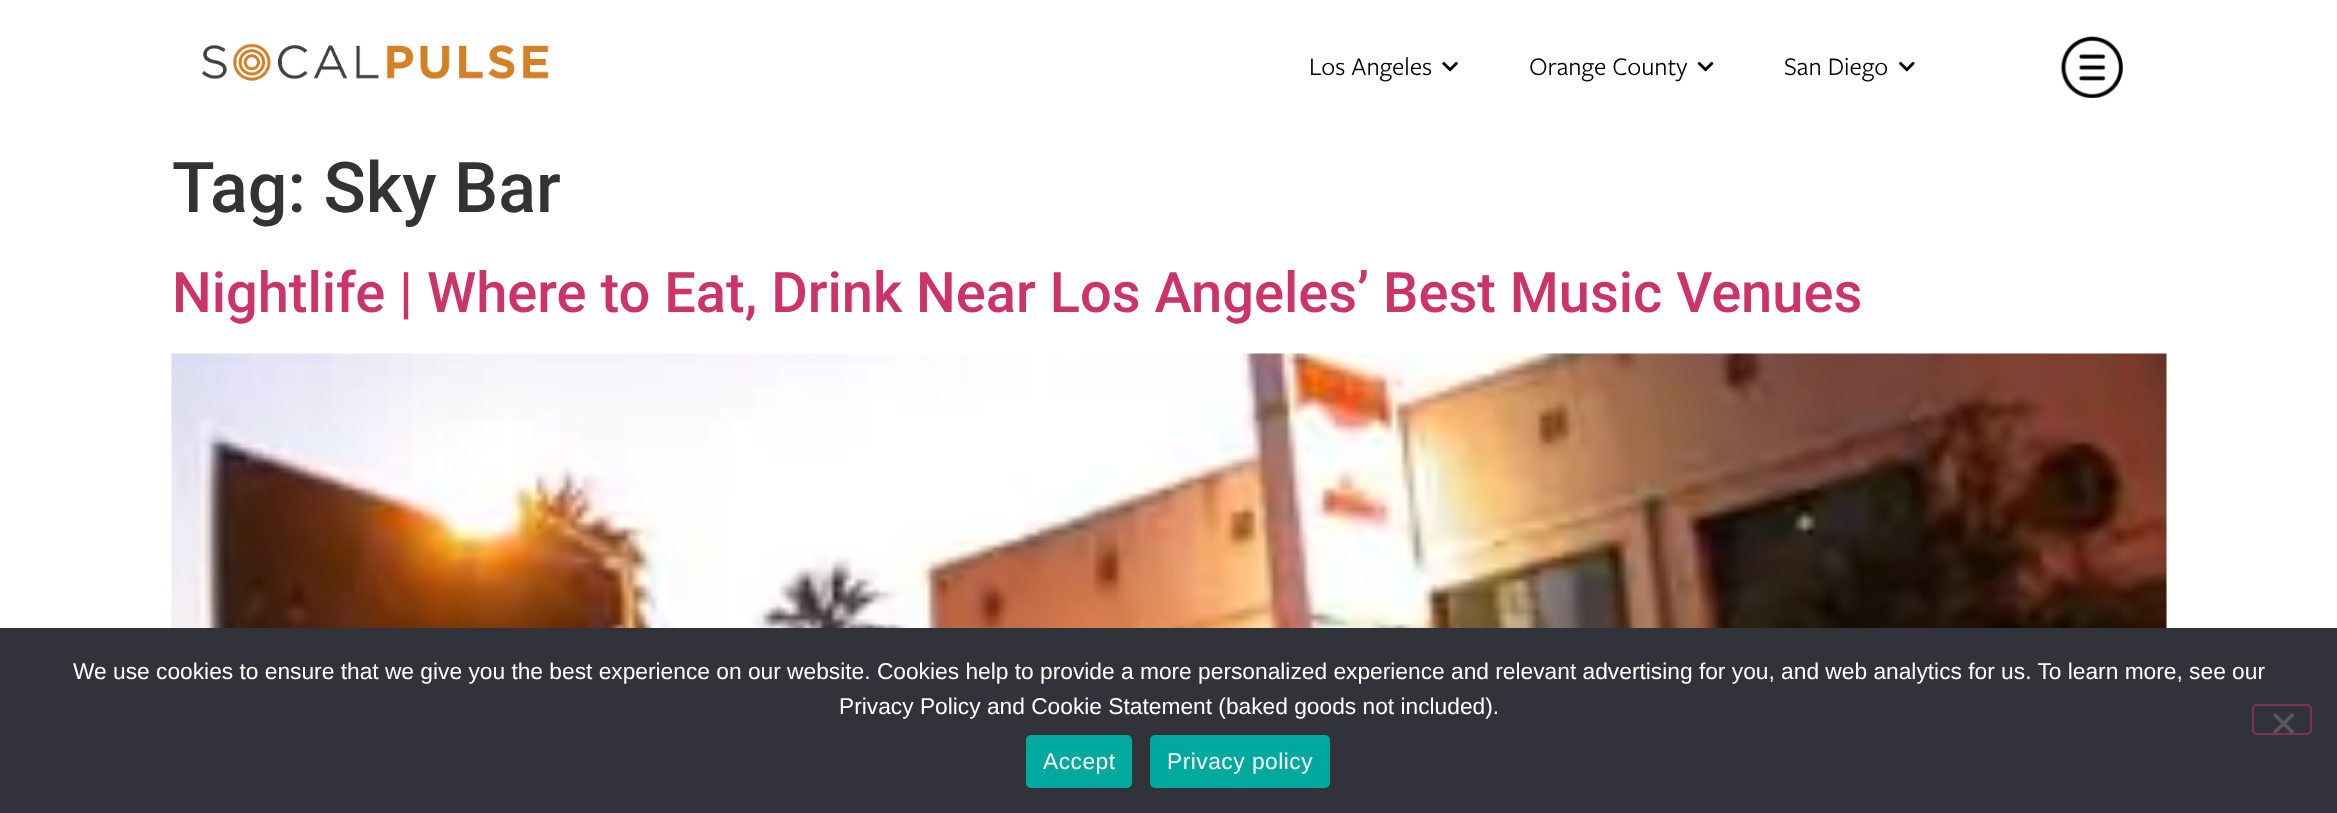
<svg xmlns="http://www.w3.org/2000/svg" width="2337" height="813">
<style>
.a{font:26.25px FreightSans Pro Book;fill:#000}
.b{font:500 70px Roboto;fill:#333}
.c{font:500 56px Roboto;fill:#c36}
.d{font:22.75px Liberation Sans;fill:#fff}
.e{font:22.75px Liberation Sans;letter-spacing:0.5px;fill:#fff}
</style>
<rect width="100%" height="100%" fill="#fff"/>
<image href="1.png" x="201" y="43" width="348" height="38"/>
<image href="2.png" x="1442" y="61" width="16" height="11"/>
<image href="3.png" x="1697" y="61" width="17" height="11"/>
<image href="4.png" x="1899" y="61" width="16" height="11"/>
<image href="5.png" x="2060" y="36" width="63" height="62"/>
<image href="6.png" x="171" y="353" width="1996" height="275"/>
<path fill="#32323a" d="M0 628h2337v185H0z"/>
<rect fill="none" stroke="#7f3350" stroke-width="2" x="2253" y="705" width="58" height="29" rx="4"/>
<path fill="#59595d" d="M2292 713l2.5 2.5l-19 18.5l-2.5-2.5z"/>
<path fill="#59595d" d="M2273 715.5l2.5-2.5l19 18.5l-2.5 2.5z"/>
<rect fill="#00a99d" x="1026" y="735" width="106" height="53" rx="5"/>
<rect fill="#00a99d" x="1150" y="735" width="180" height="53" rx="5"/>
<text class="a" x="1309" y="75">Los Angeles</text>
<text class="a" x="1529" y="75">Orange County</text>
<text class="a" x="1784" y="75">San Diego</text>
<text class="b" x="172" y="212">Tag: Sky Bar</text>
<text class="c" x="172" y="312">Nightlife | Where to Eat, Drink Near Los Angeles’ Best Music Venues</text>
<text class="d" x="73" y="679">We use cookies to ensure that we give you the best experience on our website. Cookies help to provide a more personalized experience and relevant advertising for you, and web analytics for us. To learn more, see our</text>
<text class="d" x="839" y="714">Privacy Policy and Cookie Statement (baked goods not included).</text>
<text class="e" x="1043" y="769">Accept</text>
<text class="e" x="1167" y="769">Privacy policy</text>
</svg>
